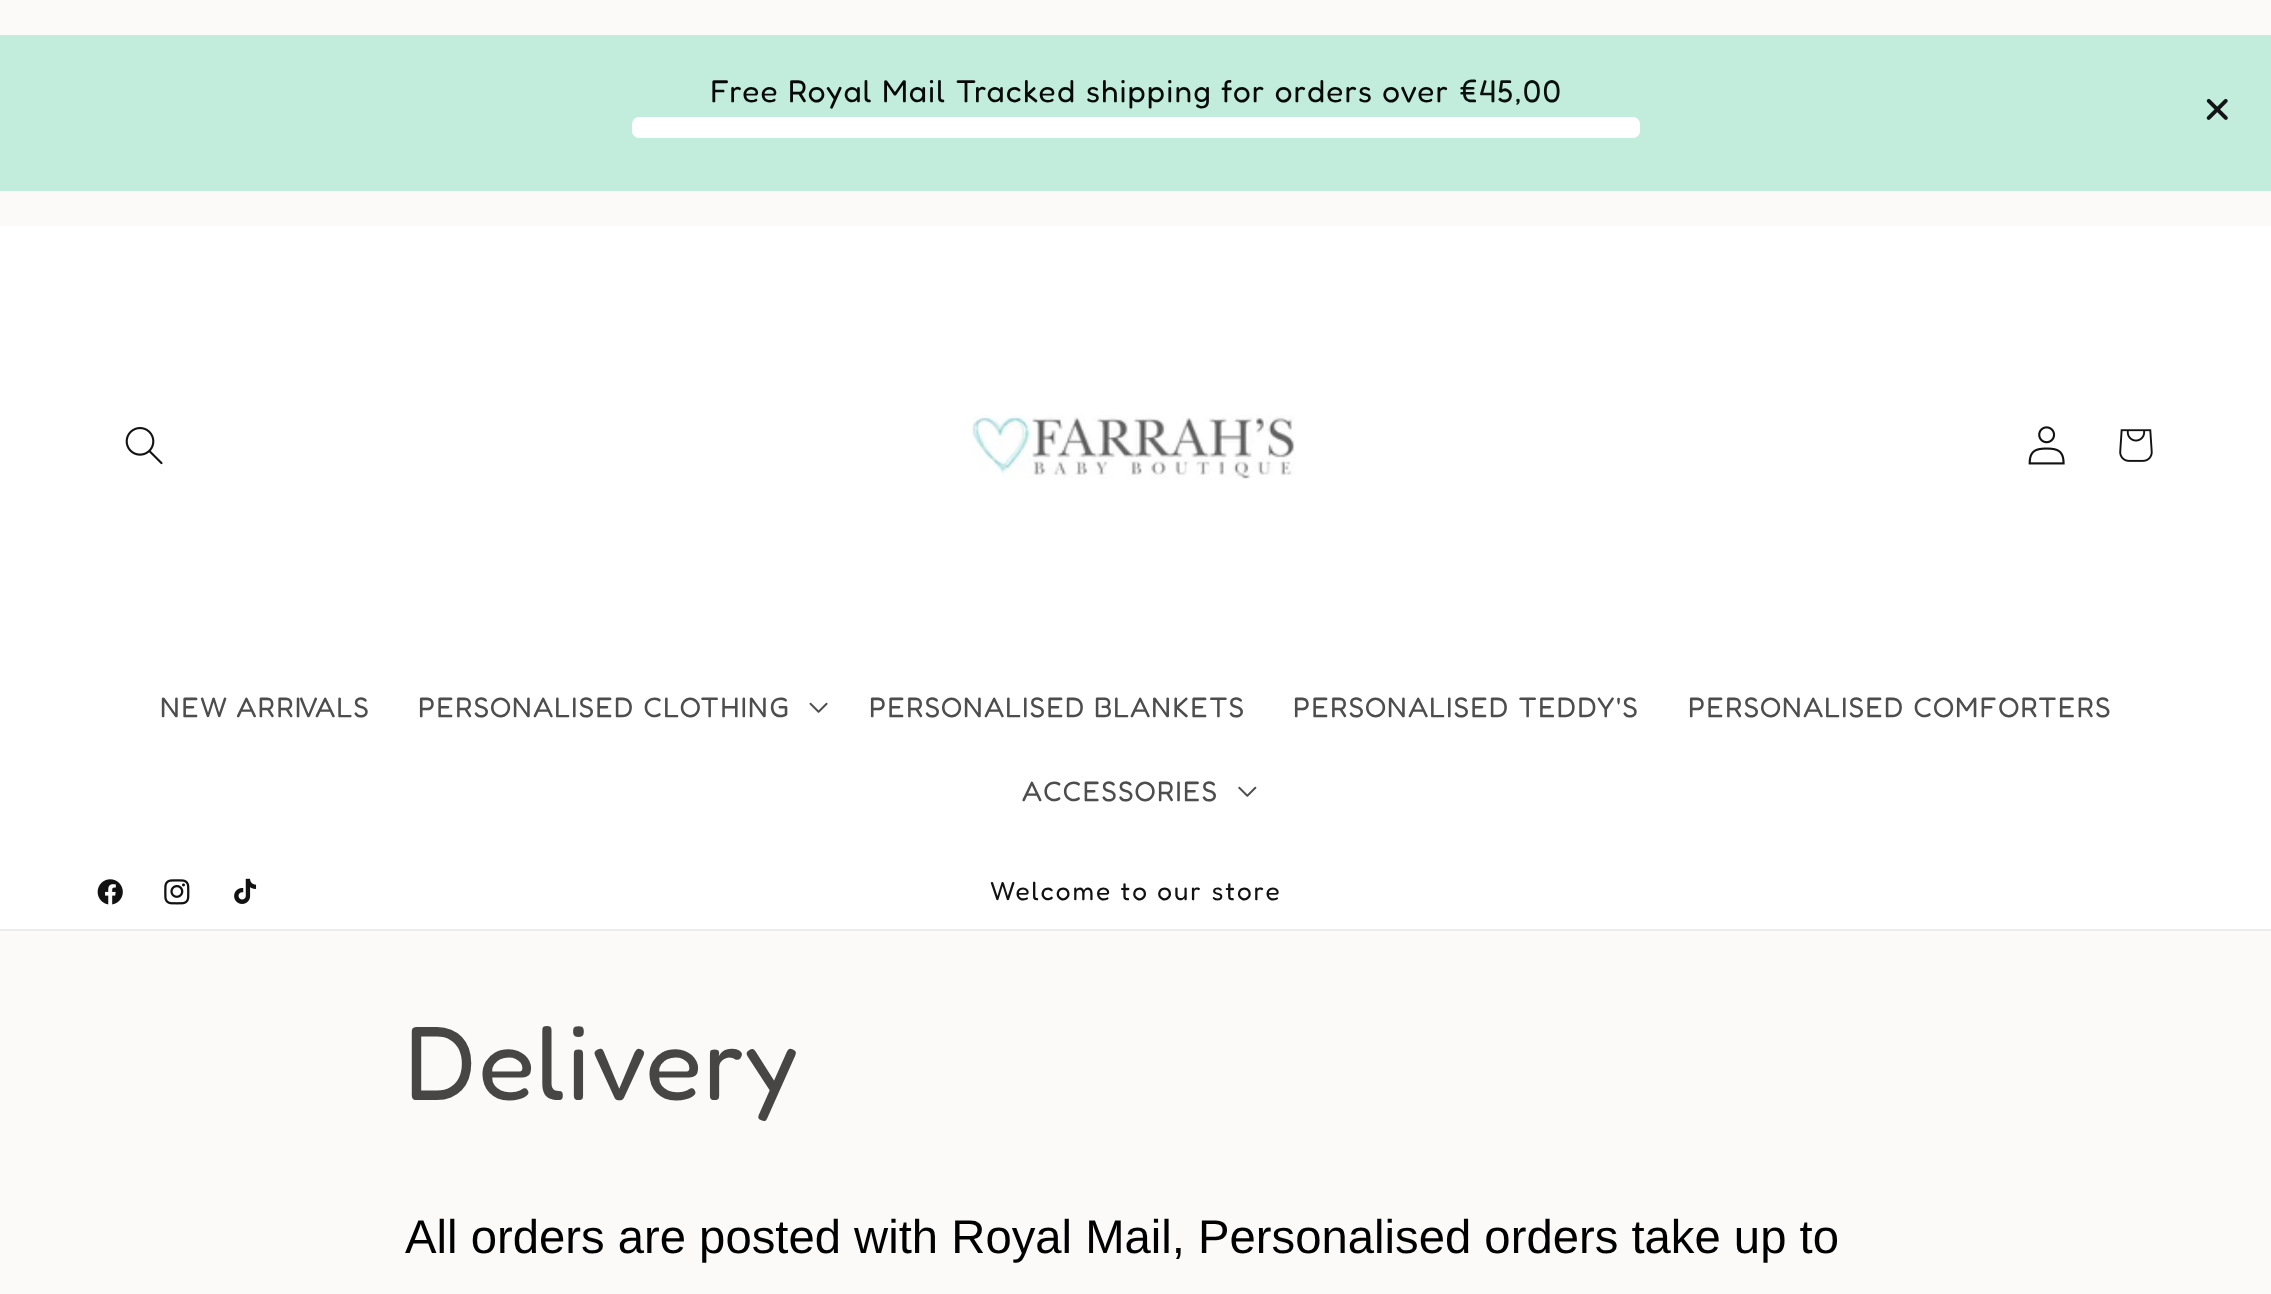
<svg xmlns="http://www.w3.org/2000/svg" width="2271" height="1294">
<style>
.a{font:31.5px Fredoka;letter-spacing:1.2px;fill:#070808}
.b{font:31.5px Fredoka;letter-spacing:1.2px;fill:#09100e}
.c{font:28.2px Fredoka;letter-spacing:1.2px;fill:#4d4d4d}
.d{font:26.2px Fredoka;letter-spacing:2px;fill:#121212}
.e{font:104.5px Fredoka;letter-spacing:1.2px;fill:#484545}
.f{font:47.25px Liberation Sans;fill:#000}
</style>
<rect width="100%" height="100%" fill="#fcfaf9"/>
<path fill="#c2eddc" d="M0 35h2271v156H0z"/>
<image href="1.png" x="2206" y="98" width="22" height="22"/>
<rect fill="#fff" x="632" y="117" width="1008" height="21" rx="7"/>
<path fill="#fff" d="M0 226h2271v703H0z"/>
<image href="2.png" x="125" y="427" width="38" height="38"/>
<image href="3.png" x="972" y="415" width="323" height="64"/>
<image href="4.png" x="2028" y="426" width="37" height="39"/>
<image href="5.png" x="2119" y="429" width="34" height="33"/>
<image href="6.png" x="809" y="702" width="19" height="11"/>
<image href="7.png" x="1238" y="786" width="19" height="11"/>
<path fill="#ececec" d="M0 929h2271v2H0z"/>
<image href="8.png" x="97" y="879" width="26" height="26"/>
<image href="9.png" x="164" y="879" width="26" height="26"/>
<image href="10.png" x="234" y="878" width="23" height="26"/>
<text class="a" x="710" y="102">Free Royal Mail Tracked shipping for orders over</text>
<text class="b" x="1459" y="102">€45,00</text>
<text class="c" x="160" y="717">NEW ARRIVALS</text>
<text class="c" x="418" y="717">PERSONALISED CLOTHING</text>
<text class="c" x="869" y="717">PERSONALISED BLANKETS</text>
<text class="c" x="1293" y="717">PERSONALISED TEDDY'S</text>
<text class="c" x="1688" y="717">PERSONALISED COMFORTERS</text>
<text class="c" x="1022" y="801">ACCESSORIES</text>
<text class="d" x="990" y="900">Welcome to our store</text>
<text class="e" x="405" y="1099">Delivery</text>
<text class="f" x="405" y="1253">All orders are posted with Royal Mail, Personalised orders take up to</text>
</svg>
